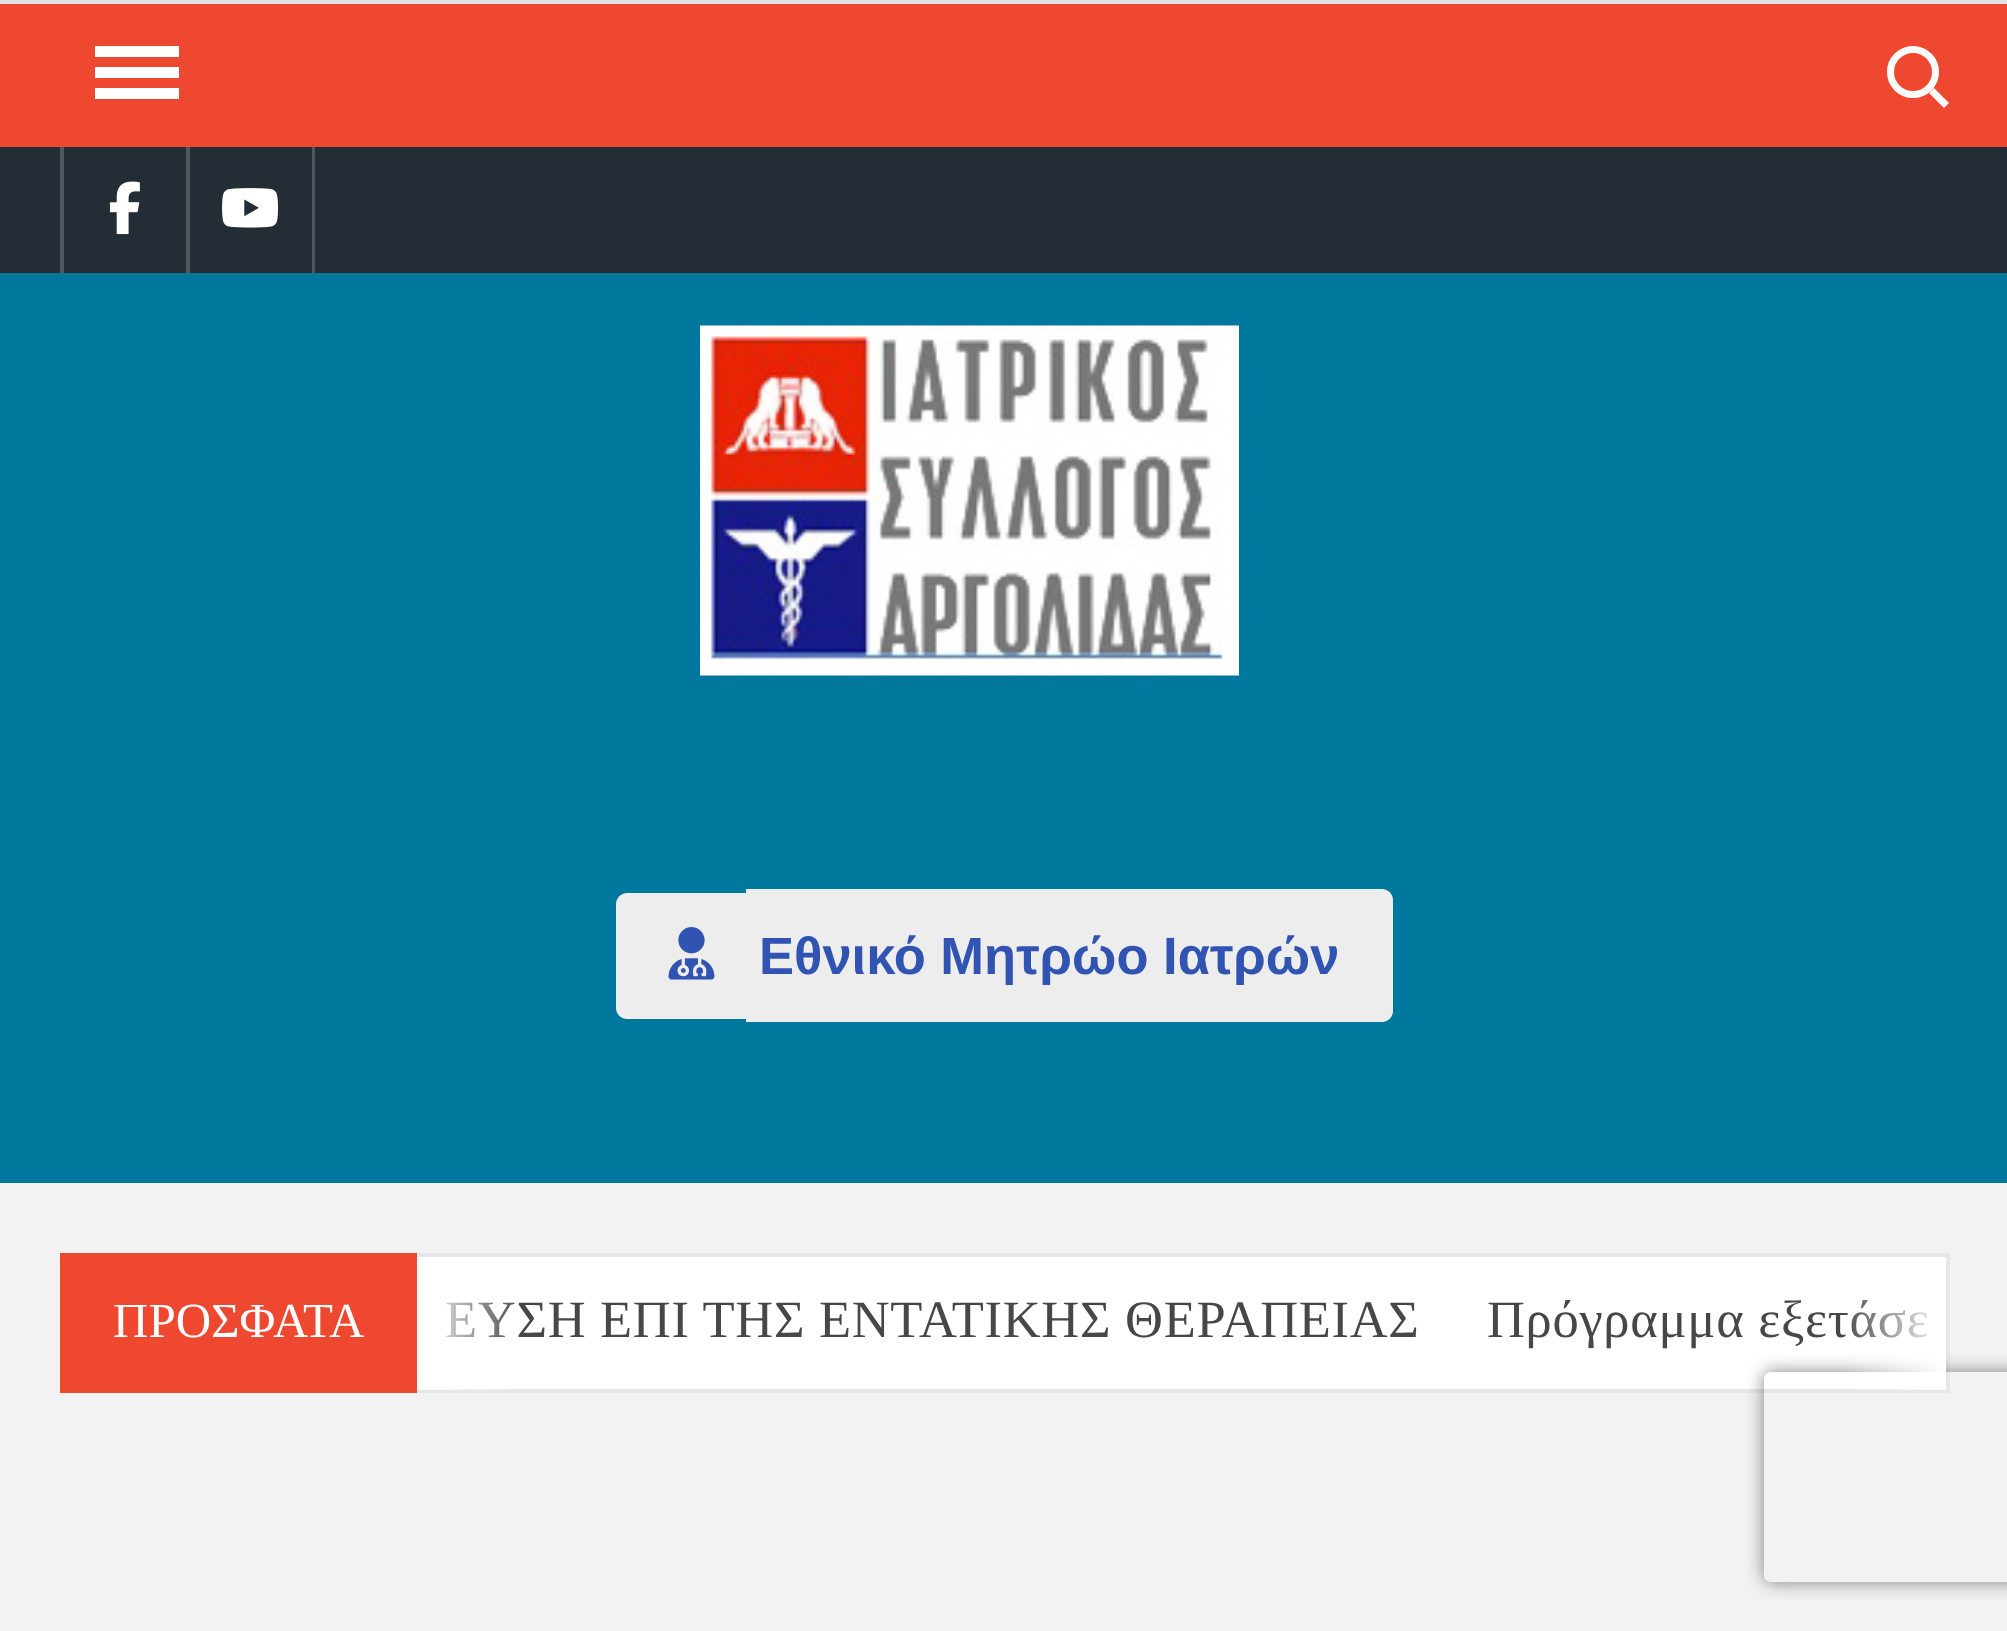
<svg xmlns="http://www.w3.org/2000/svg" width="2007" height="1631">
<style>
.a{font:bold 52.5px Liberation Sans;fill:#3153b2}
.b{font:49px Liberation Serif;fill:#fff}
.c{font:52.5px Liberation Serif;letter-spacing:0.7px;fill:#474747}
</style>
<defs>
<clipPath id="clip1"><path d="M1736 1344h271v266h-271zm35 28h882c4 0 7 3 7 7v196c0 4-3 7-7 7h-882c-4 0-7-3-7-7v-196c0-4 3-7 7-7z" clip-rule="evenodd"/></clipPath>
<linearGradient id="g1" gradientUnits="userSpaceOnUse" x1="417" y1="1323" x2="522" y2="1323"><stop offset="0" stop-color="#fff"/><stop offset="1" stop-color="#fff" stop-opacity="0"/></linearGradient>
<linearGradient id="g2" gradientUnits="userSpaceOnUse" x1="1841" y1="1323" x2="1946" y2="1323"><stop offset="0" stop-color="#fff" stop-opacity="0"/><stop offset="1" stop-color="#fff"/></linearGradient>
</defs>
<rect width="100%" height="100%" fill="#f2f2f2"/>
<path fill="#e4e4e4" d="M0 0h2007v4H0z"/>
<path fill="#ee4930" d="M0 4h2007v143H0z"/>
<path fill="#fff" d="M95 67h84v11H95z"/>
<path fill="#fff" d="M95 46h84v11H95z"/>
<path fill="#fff" d="M95 88h84v11H95z"/>
<circle fill="none" stroke="#fff" stroke-width="7" cx="1913" cy="72" r="22.5"/>
<path fill="#fff" d="M1934 88l15 15l-5 5l-15-15z"/>
<path fill="#242c35" d="M0 147h2007v126H0z"/>
<path fill="#50565d" d="M186 147h4v126H186z"/>
<path fill="#50565d" d="M60 147h4v126H60z"/>
<image href="1.png" x="109" y="181" width="31" height="54"/>
<path fill="#50565d" d="M312 147h3v126H312z"/>
<image href="2.png" x="222" y="188" width="57" height="40"/>
<path fill="#00789d" d="M0 273h2007v910H0z"/>
<image href="3.png" x="700" y="325" width="539" height="351"/>
<path fill="#ededed" d="M627 893h119v126h-119c-6 0-11-5-11-11v-104c0-6 5-11 11-11z"/>
<path fill="#ededed" d="M746 889h636c6 0 11 5 11 11v111c0 6-5 11-11 11h-636z"/>
<image href="4.png" x="668" y="927" width="47" height="53"/>
<path fill="#fff" d="M418 1257h1527v132H418z"/>
<path fill="none" stroke="#e7e7e7" stroke-width="4" d="M62 1255h1886v136H62z"/>
<path fill="#ee4930" d="M60 1253h357v140H60z"/>
<g clip-path="url(#clip1)">
<rect fill="#808080" filter="blur(9px)" x="1764" y="1372" width="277" height="210" rx="7"/>
</g>
<text class="a" x="759" y="974">Εθνικό Μητρώο Ιατρών</text>
<text class="b" x="113" y="1337">ΠΡΟΣΦΑΤΑ</text>
<text class="c" x="445" y="1337">ΕΥΣΗ ΕΠΙ ΤΗΣ ΕΝΤΑΤΙΚΗΣ ΘΕΡΑΠΕΙΑΣ</text>
<path fill="url(#g1)" d="M417 1257h103v133H417z"/>
<text class="c" x="1487" y="1337">Πρόγραμμα εξετάσε</text>
<path fill="url(#g2)" d="M1843 1257h103v133H1843z"/>
</svg>
